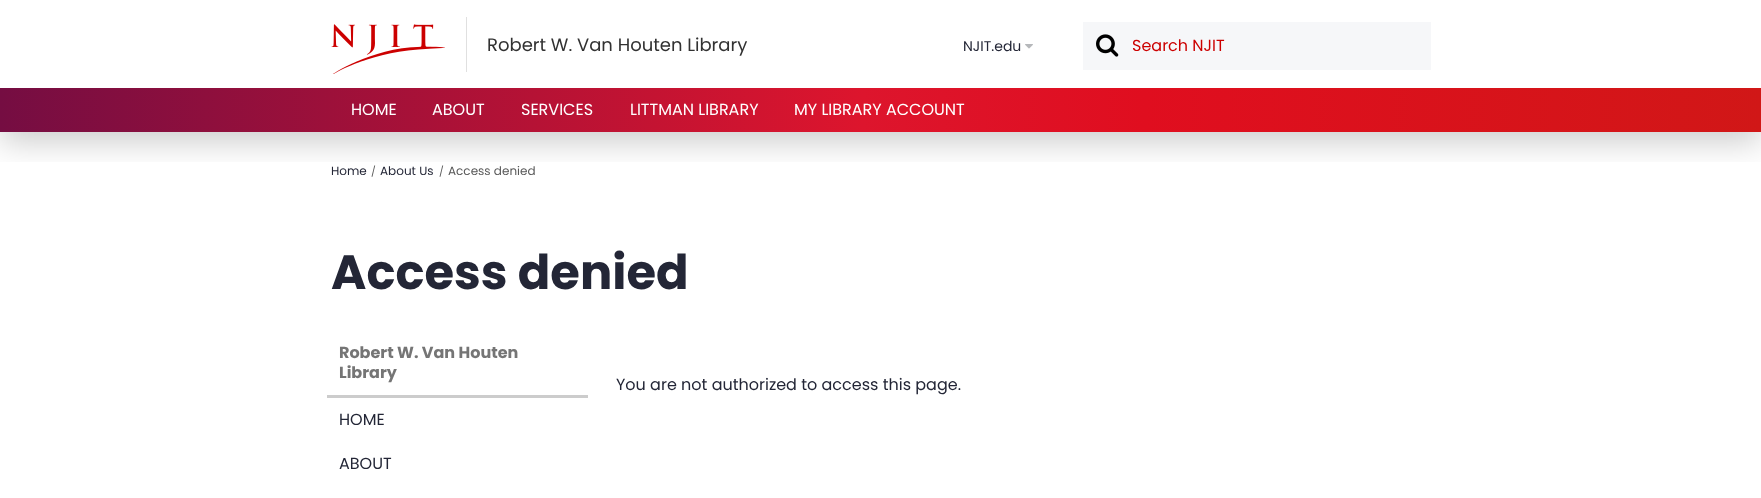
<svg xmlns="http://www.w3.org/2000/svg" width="1761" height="498">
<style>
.a{font:18px Poppins;fill:#323232}
.b{font:14px Poppins;fill:#232636}
.c{font:16px Poppins;fill:#c00}
.d{font:16px Poppins;fill:#fff}
.e{font:12px Poppins;fill:#232636}
.f{font:10px Poppins;fill:#595959}
.g{font:12px Poppins;fill:#595959}
.h{font:bold 48px Poppins;fill:#232636}
.i{font:bold 16px Poppins;fill:#757575}
.j{font:16px Poppins;fill:#232636}
</style>
<defs>
<clipPath id="clip1"><path d="M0 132h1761v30H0z"/></clipPath>
<linearGradient id="g1" gradientUnits="userSpaceOnUse" x1="1761" y1="110" x2="0" y2="110"><stop offset="0" stop-color="#d11717"/><stop offset="0.35" stop-color="#e00e1f"/><stop offset="0.51" stop-color="#dd152d"/><stop offset="1" stop-color="#750d42"/></linearGradient>
</defs>
<rect width="100%" height="100%" fill="#fff"/>
<g clip-path="url(#clip1)">
<path fill="#00000033" filter="blur(16px)" d="M0 10h1761v132H0z"/>
</g>
<image href="1.png" x="331" y="24" width="114" height="50"/>
<path fill="#e0e0e0" d="M466 17h1v55H466z"/>
<image href="2.png" x="1025" y="44" width="8" height="5"/>
<path fill="#f6f7f9" d="M1083 22h348v48H1083z"/>
<image href="3.png" x="1096" y="34" width="23" height="23"/>
<path fill="url(#g1)" d="M0 88h1761v44H0z"/>
<path fill="#ccc" d="M327 395h261v3H327z"/>
<text class="a" x="487" y="51">Robert W. Van Houten Library</text>
<text class="b" x="963" y="51">NJIT.edu</text>
<text class="c" x="1132" y="51">Search NJIT</text>
<text class="d" x="351" y="115">HOME</text>
<text class="d" x="432" y="115">ABOUT</text>
<text class="d" x="521" y="115">SERVICES</text>
<text class="d" x="630" y="115">LITTMAN LIBRARY</text>
<text class="d" x="794" y="115">MY LIBRARY ACCOUNT</text>
<text class="e" x="331" y="175">Home</text>
<text class="f" x="371" y="175">/</text>
<text class="e" x="380" y="175">About Us</text>
<text class="f" x="439" y="175">/</text>
<text class="g" x="448" y="175">Access denied</text>
<text class="h" x="331" y="289">Access denied</text>
<text class="i" x="339" y="358">Robert W. Van Houten</text>
<text class="i" x="339" y="378">Library</text>
<text class="j" x="339" y="425">HOME</text>
<text class="j" x="339" y="469">ABOUT</text>
<text class="j" x="616" y="390">You are not authorized to access this page.</text>
</svg>
